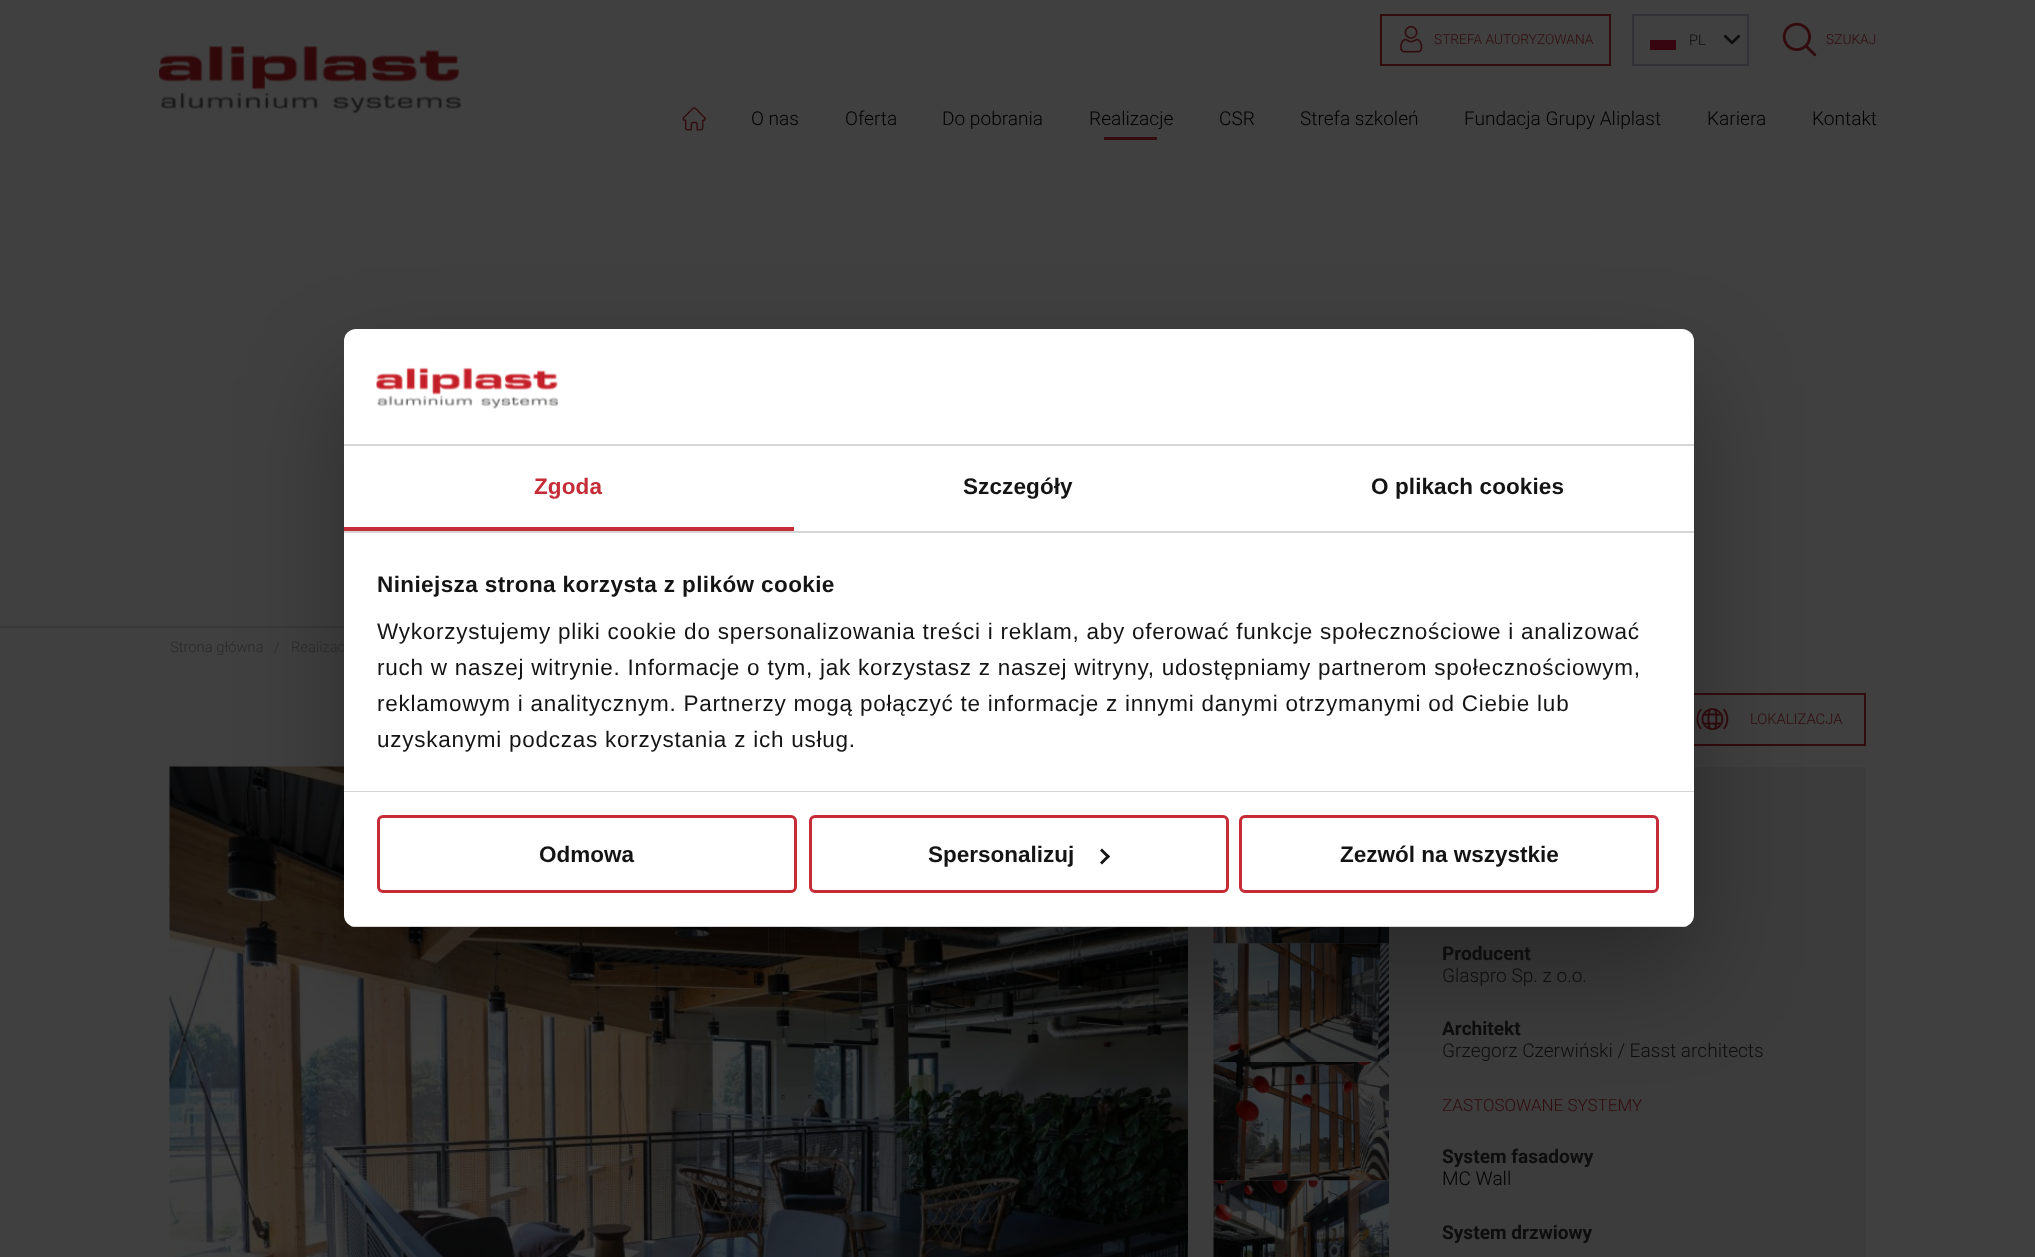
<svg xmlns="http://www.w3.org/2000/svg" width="2035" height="1257">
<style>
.a{font:300 13.75px Roboto;fill:#320b0e}
.b{font:300 14.75px Roboto;fill:#0d0d0d}
.c{font:300 19.1px Roboto;fill:#000}
.d{font:300 14.75px Roboto;fill:#292929}
.e{font:300 14.75px Roboto;fill:#320b0e}
.f{font:bold 19.1px Roboto;fill:#0d0d0d}
.g{font:300 19.1px Roboto;fill:#0d0d0d}
.h{font:300 17px Roboto;fill:#320b0e}
.i{font:bold 22.5px Liberation Sans;letter-spacing:0.1px;fill:#c62c37}
.j{font:bold 22.5px Liberation Sans;letter-spacing:0.1px;fill:#141414}
.k{font:bold 22.5px Liberation Sans;letter-spacing:0.4px;fill:#141414}
.l{font:22.5px Liberation Sans;letter-spacing:0.75px;fill:#141414}
.m{font:bold 22.5px Liberation Sans;fill:#141414}
</style>
<defs>
<clipPath id="clip1"><rect x="344" y="329" width="1350" height="598" rx="12"/></clipPath>
</defs>
<rect width="100%" height="100%" fill="#404040"/>
<image href="1.png" x="159" y="46" width="302" height="68"/>
<path fill="none" stroke="#320b0e" stroke-width="2" d="M1381 15h229v50H1381z"/>
<image href="2.png" x="1400" y="26" width="23" height="27"/>
<path fill="none" stroke="#313235" stroke-width="2" d="M1633 15h115v50H1633z"/>
<path fill="#37050f" d="M1650 40h26v10H1650z"/>
<path fill="#0d0d0d" d="M1738.5 34.5l-6.5 6.5l-6.5-6.5l-2 2l8.5 8l8.5-8z"/>
<image href="3.png" x="1782" y="22" width="35" height="35"/>
<image href="4.png" x="682" y="107" width="24" height="24"/>
<path fill="#320b0e" d="M1104 137h53v3H1104z"/>
<path fill="#383838" d="M0 626h344v2H0z"/>
<path fill="none" stroke="#320b0e" stroke-width="2" d="M1675 694h190v51H1675z"/>
<image href="5.png" x="1696" y="708" width="33" height="22"/>
<image href="6.png" x="169" y="766" width="1019" height="491"/>
<path fill="#3c3c3c" d="M1188 767h678v490H1188z"/>
<image href="7.png" x="1213" y="927" width="176" height="17"/>
<image href="8.png" x="1213" y="943" width="176" height="119"/>
<image href="9.png" x="1213" y="1062" width="176" height="119"/>
<image href="10.png" x="1213" y="1180" width="176" height="77"/>
<rect fill="#0000004d" filter="blur(51px)" x="344" y="377" width="1350" height="598" rx="12"/>
<text class="a" x="1434" y="44">STREFA AUTORYZOWANA</text>
<text class="b" x="1689" y="45">PL</text>
<text class="a" x="1826" y="44">SZUKAJ</text>
<text class="c" x="751" y="125">O nas</text>
<text class="c" x="845" y="125">Oferta</text>
<text class="c" x="942" y="125">Do pobrania</text>
<text class="c" x="1089" y="125">Realizacje</text>
<text class="c" x="1219" y="125">CSR</text>
<text class="c" x="1300" y="125">Strefa szkoleń</text>
<text class="c" x="1464" y="125">Fundacja Grupy Aliplast</text>
<text class="c" x="1707" y="125">Kariera</text>
<text class="c" x="1812" y="125">Kontakt</text>
<text class="d" x="170" y="652">Strona główna</text>
<text class="d" x="274" y="652">/</text>
<text class="d" x="291" y="652">Realizac</text>
<text class="e" x="1750" y="724">LOKALIZACJA</text>
<text class="f" x="1442" y="960">Producent</text>
<text class="g" x="1442" y="982">Glaspro Sp. z o.o.</text>
<text class="f" x="1442" y="1035">Architekt</text>
<text class="g" x="1442" y="1057">Grzegorz Czerwiński / Easst architects</text>
<text class="h" x="1442" y="1111">ZASTOSOWANE SYSTEMY</text>
<text class="f" x="1442" y="1163">System fasadowy</text>
<text class="c" x="1442" y="1185">MC Wall</text>
<text class="f" x="1442" y="1239">System drzwiowy</text>
<rect fill="#fff" x="344" y="329" width="1350" height="598" rx="12"/>
<path fill="#d6d6d6" d="M344 444h1350v2H344z"/>
<image href="11.png" x="376" y="367" width="182" height="42"/>
<path fill="#d6d6d6" d="M344 531h1350v2H344z"/>
<path fill="#c62c37" d="M344 527h450v4H344z"/>
<text class="i" x="534" y="494">Zgoda</text>
<text class="j" x="963" y="494">Szczegóły</text>
<text class="j" x="1371" y="494">O plikach cookies</text>
<path fill="#d6d6d6" d="M344 791h1350v1H344z"/>
<text class="k" x="377" y="592">Niniejsza strona korzysta z plików cookie</text>
<text class="l" x="377" y="639">Wykorzystujemy pliki cookie do spersonalizowania treści i reklam, aby oferować funkcje społecznościowe i analizować</text>
<text class="l" x="377" y="675">ruch w naszej witrynie. Informacje o tym, jak korzystasz z naszej witryny, udostępniamy partnerom społecznościowym,</text>
<text class="l" x="377" y="711">reklamowym i analitycznym. Partnerzy mogą połączyć te informacje z innymi danymi otrzymanymi od Ciebie lub</text>
<text class="l" x="377" y="747">uzyskanymi podczas korzystania z ich usług.</text>
<g clip-path="url(#clip1)">
<path fill="#d6d6d6" d="M344 926h1350v1H344z"/>
</g>
<rect fill="none" stroke="#c62c37" stroke-width="3" x="378.5" y="816.5" width="417" height="75" rx="4.5"/>
<text class="m" x="539" y="862">Odmowa</text>
<rect fill="none" stroke="#c62c37" stroke-width="3" x="810.5" y="816.5" width="417" height="75" rx="4.5"/>
<text class="m" x="928" y="862">Spersonalizuj</text>
<path fill="#141414" d="M1102 848.5l8 8l-2 2l-8-8z"/>
<path fill="#141414" d="M1108 854.5l2 2l-8 8l-2-2z"/>
<rect fill="none" stroke="#c62c37" stroke-width="3" x="1240.5" y="816.5" width="417" height="75" rx="4.5"/>
<text class="m" x="1340" y="862">Zezwól na wszystkie</text>
</svg>
